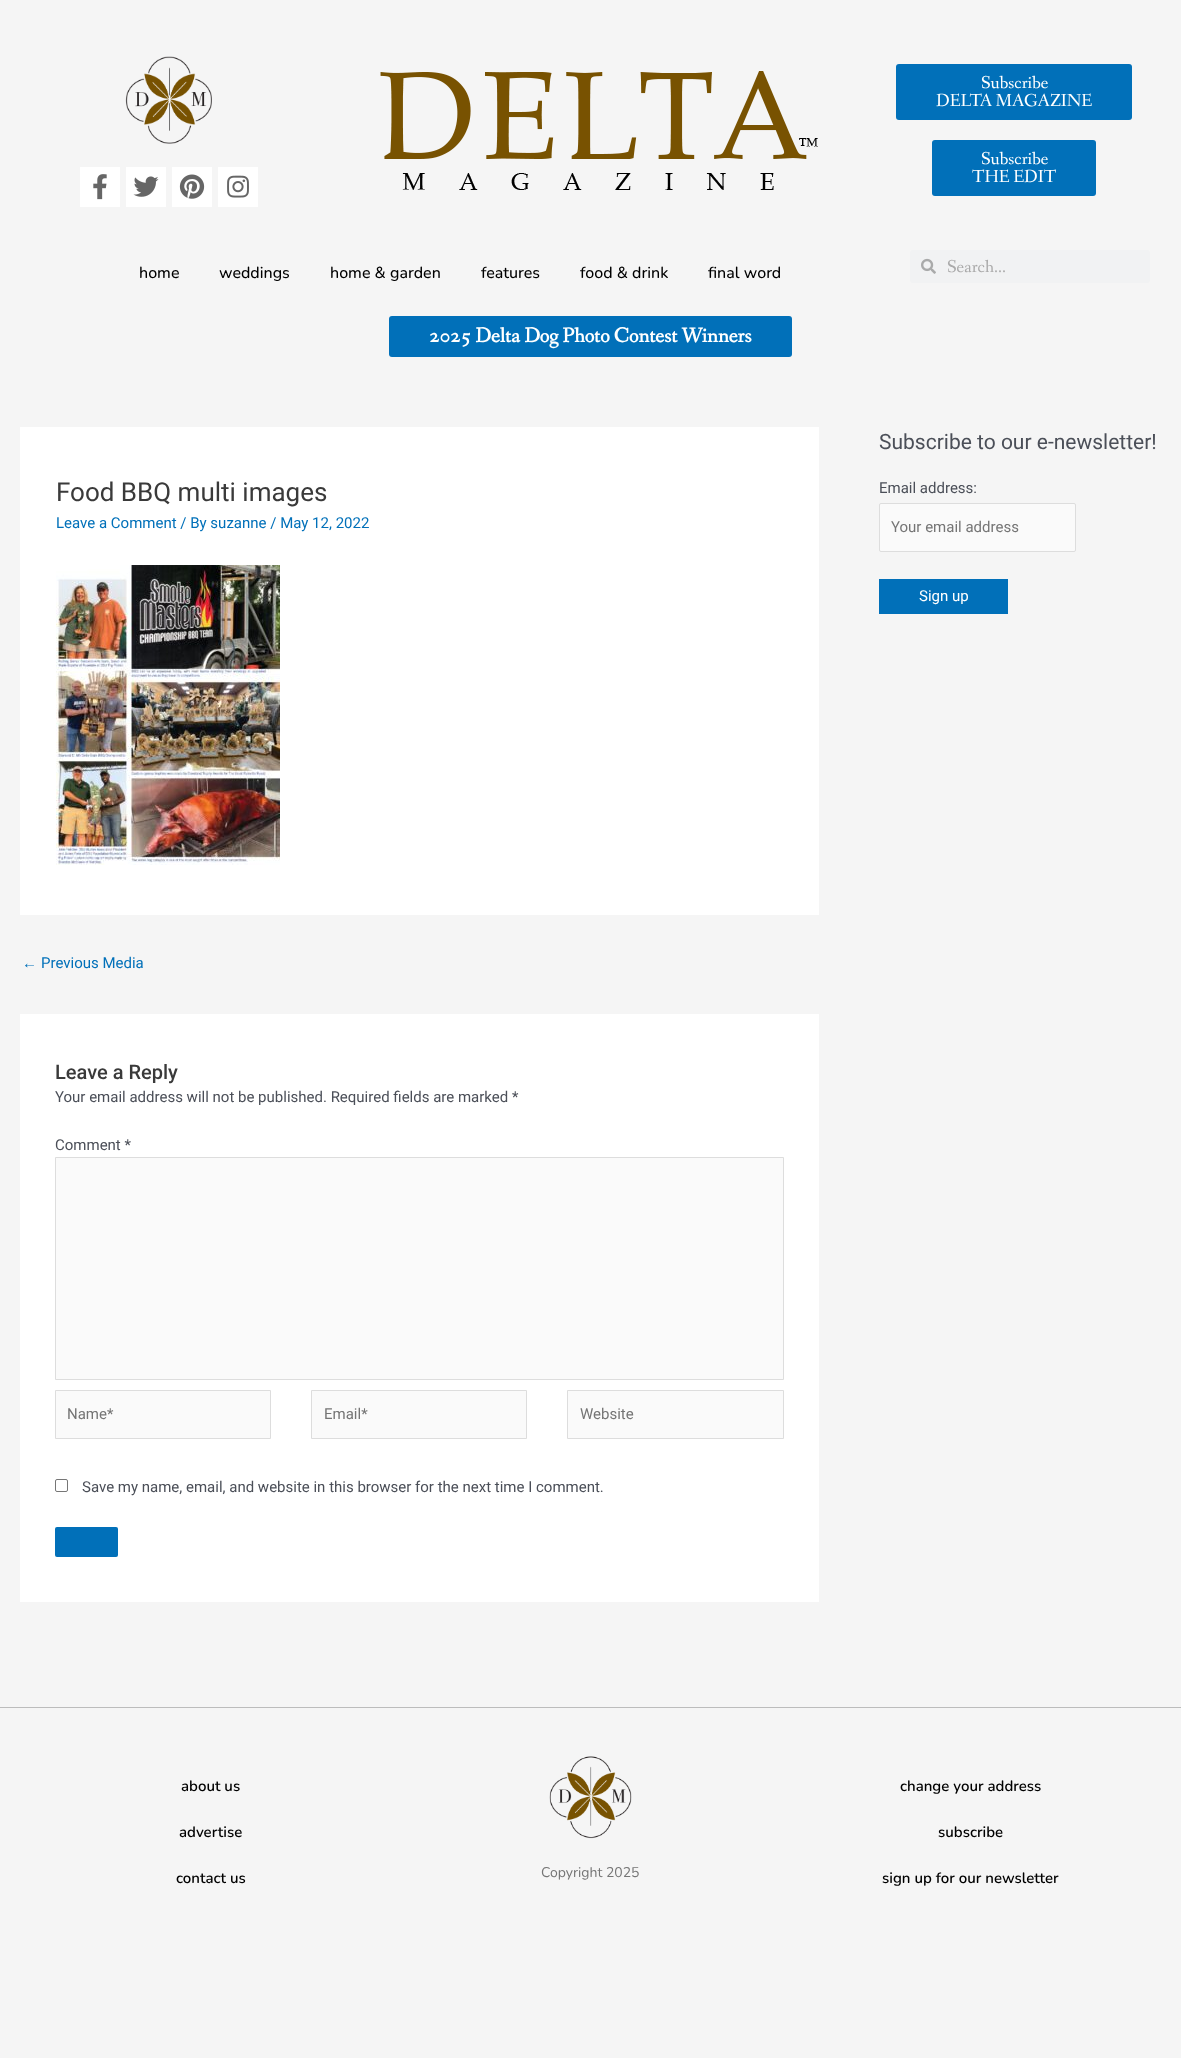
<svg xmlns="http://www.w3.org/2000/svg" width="1181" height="2058">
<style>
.a{font:18px Fanwood Text;fill:#fff}
.b{font:500 16px Nunito;fill:#000}
.c{font:18px Fanwood Text;fill:#aaa}
.d{font:bold 21px Fanwood Text;fill:#fff}
.e{font:26px Roboto;fill:#3a3a3a}
.f{font:15px Roboto;fill:#0170b9}
.g{font:15px Liberation Sans;fill:#0170b9}
.h{font:500 20px Roboto;fill:#3a3a3a}
.i{font:15px Roboto;fill:#4b4f58}
.j{font:15px Roboto;fill:#757575}
.k{font:21px Roboto;fill:#4b4f58}
.l{font:15px Roboto;fill:#fff}
.m{font:600 15px Nunito;fill:#000}
.n{font:14px Nunito;fill:#757575}
</style>
<rect width="100%" height="100%" fill="#f5f5f5"/>
<image href="1.png" x="125" y="56" width="87" height="88"/>
<path fill="#fff" d="M80 167h40v40H80z"/>
<image href="2.png" x="93" y="174" width="14" height="26"/>
<path fill="#fff" d="M126 167h40v40H126z"/>
<image href="3.png" x="133" y="176" width="26" height="21"/>
<path fill="#fff" d="M172 167h40v40H172z"/>
<image href="4.png" x="179" y="174" width="26" height="25"/>
<path fill="#fff" d="M218 167h40v40H218z"/>
<image href="5.png" x="227" y="175" width="22" height="23"/>
<image href="6.png" x="380" y="71" width="438" height="119"/>
<rect fill="#0170b9" x="896" y="64" width="236" height="56" rx="3"/>
<rect fill="#0170b9" x="932" y="140" width="164" height="56" rx="3"/>
<rect fill="#f1f2f3" x="910" y="250" width="240" height="33" rx="3"/>
<image href="7.png" x="921" y="258" width="15" height="16"/>
<rect fill="#0170b9" x="389" y="316" width="403" height="41" rx="3"/>
<path fill="#fff" d="M20 427h799v488H20z"/>
<image href="8.png" x="56" y="565" width="224" height="300"/>
<path fill="#fff" d="M20 1014h799v588H20z"/>
<path fill="#fafafa" stroke="#ddd" d="M55.5 1157.5h728v222H55.5z"/>
<path fill="#fafafa" stroke="#ddd" d="M55.5 1390.5h215v48H55.5z"/>
<path fill="#fafafa" stroke="#ddd" d="M311.5 1390.5h215v48H311.5z"/>
<path fill="#fafafa" stroke="#ddd" d="M567.5 1390.5h216v48H567.5z"/>
<rect fill="none" stroke="#767676" x="55.5" y="1479.5" width="12" height="12" rx="1.5"/>
<rect fill="#0170b9" x="55" y="1527" width="63" height="30" rx="2"/>
<rect fill="#fafafa" stroke="#ddd" x="879.5" y="503.5" width="196" height="48" rx="1.5"/>
<path fill="#0170b9" d="M879 579h129v35H879z"/>
<path fill="#bcbcbc" d="M0 1707h1181v1H0z"/>
<image href="9.png" x="549" y="1756" width="83" height="83"/>
<text class="a" x="981" y="88">Subscribe</text>
<text class="a" x="936" y="106">DELTA MAGAZINE</text>
<text class="a" x="981" y="164">Subscribe</text>
<text class="a" x="972" y="182">THE EDIT</text>
<text class="b" x="139" y="278">home</text>
<text class="b" x="219" y="278">weddings</text>
<text class="b" x="330" y="278">home &amp; garden</text>
<text class="b" x="481" y="278">features</text>
<text class="b" x="580" y="278">food &amp; drink</text>
<text class="b" x="708" y="278">final word</text>
<text class="c" x="947" y="272">Search...</text>
<text class="d" x="429" y="342">2025 Delta Dog Photo Contest Winners</text>
<text class="e" x="56" y="501">Food BBQ multi images</text>
<text class="f" x="56" y="528">Leave a Comment / By suzanne / May 12, 2022</text>
<text class="g" x="22" y="968">←</text>
<text class="f" x="41" y="968">Previous Media</text>
<text class="h" x="55" y="1079">Leave a Reply</text>
<text class="i" x="55" y="1102">Your email address will not be published. Required fields are marked *</text>
<text class="i" x="55" y="1150">Comment *</text>
<text class="j" x="67" y="1419">Name*</text>
<text class="j" x="324" y="1419">Email*</text>
<text class="j" x="580" y="1419">Website</text>
<text class="i" x="82" y="1492">Save my name, email, and website in this browser for the next time I comment.</text>
<text class="k" x="879" y="449">Subscribe to our e-newsletter!</text>
<text class="i" x="879" y="493">Email address:</text>
<text class="j" x="891" y="532">Your email address</text>
<text class="l" x="919" y="601">Sign up</text>
<text class="m" x="181" y="1791">about us</text>
<text class="m" x="179" y="1837">advertise</text>
<text class="m" x="176" y="1883">contact us</text>
<text class="n" x="541" y="1877">Copyright 2025</text>
<text class="m" x="900" y="1791">change your address</text>
<text class="m" x="938" y="1837">subscribe</text>
<text class="m" x="882" y="1883">sign up for our newsletter</text>
</svg>
